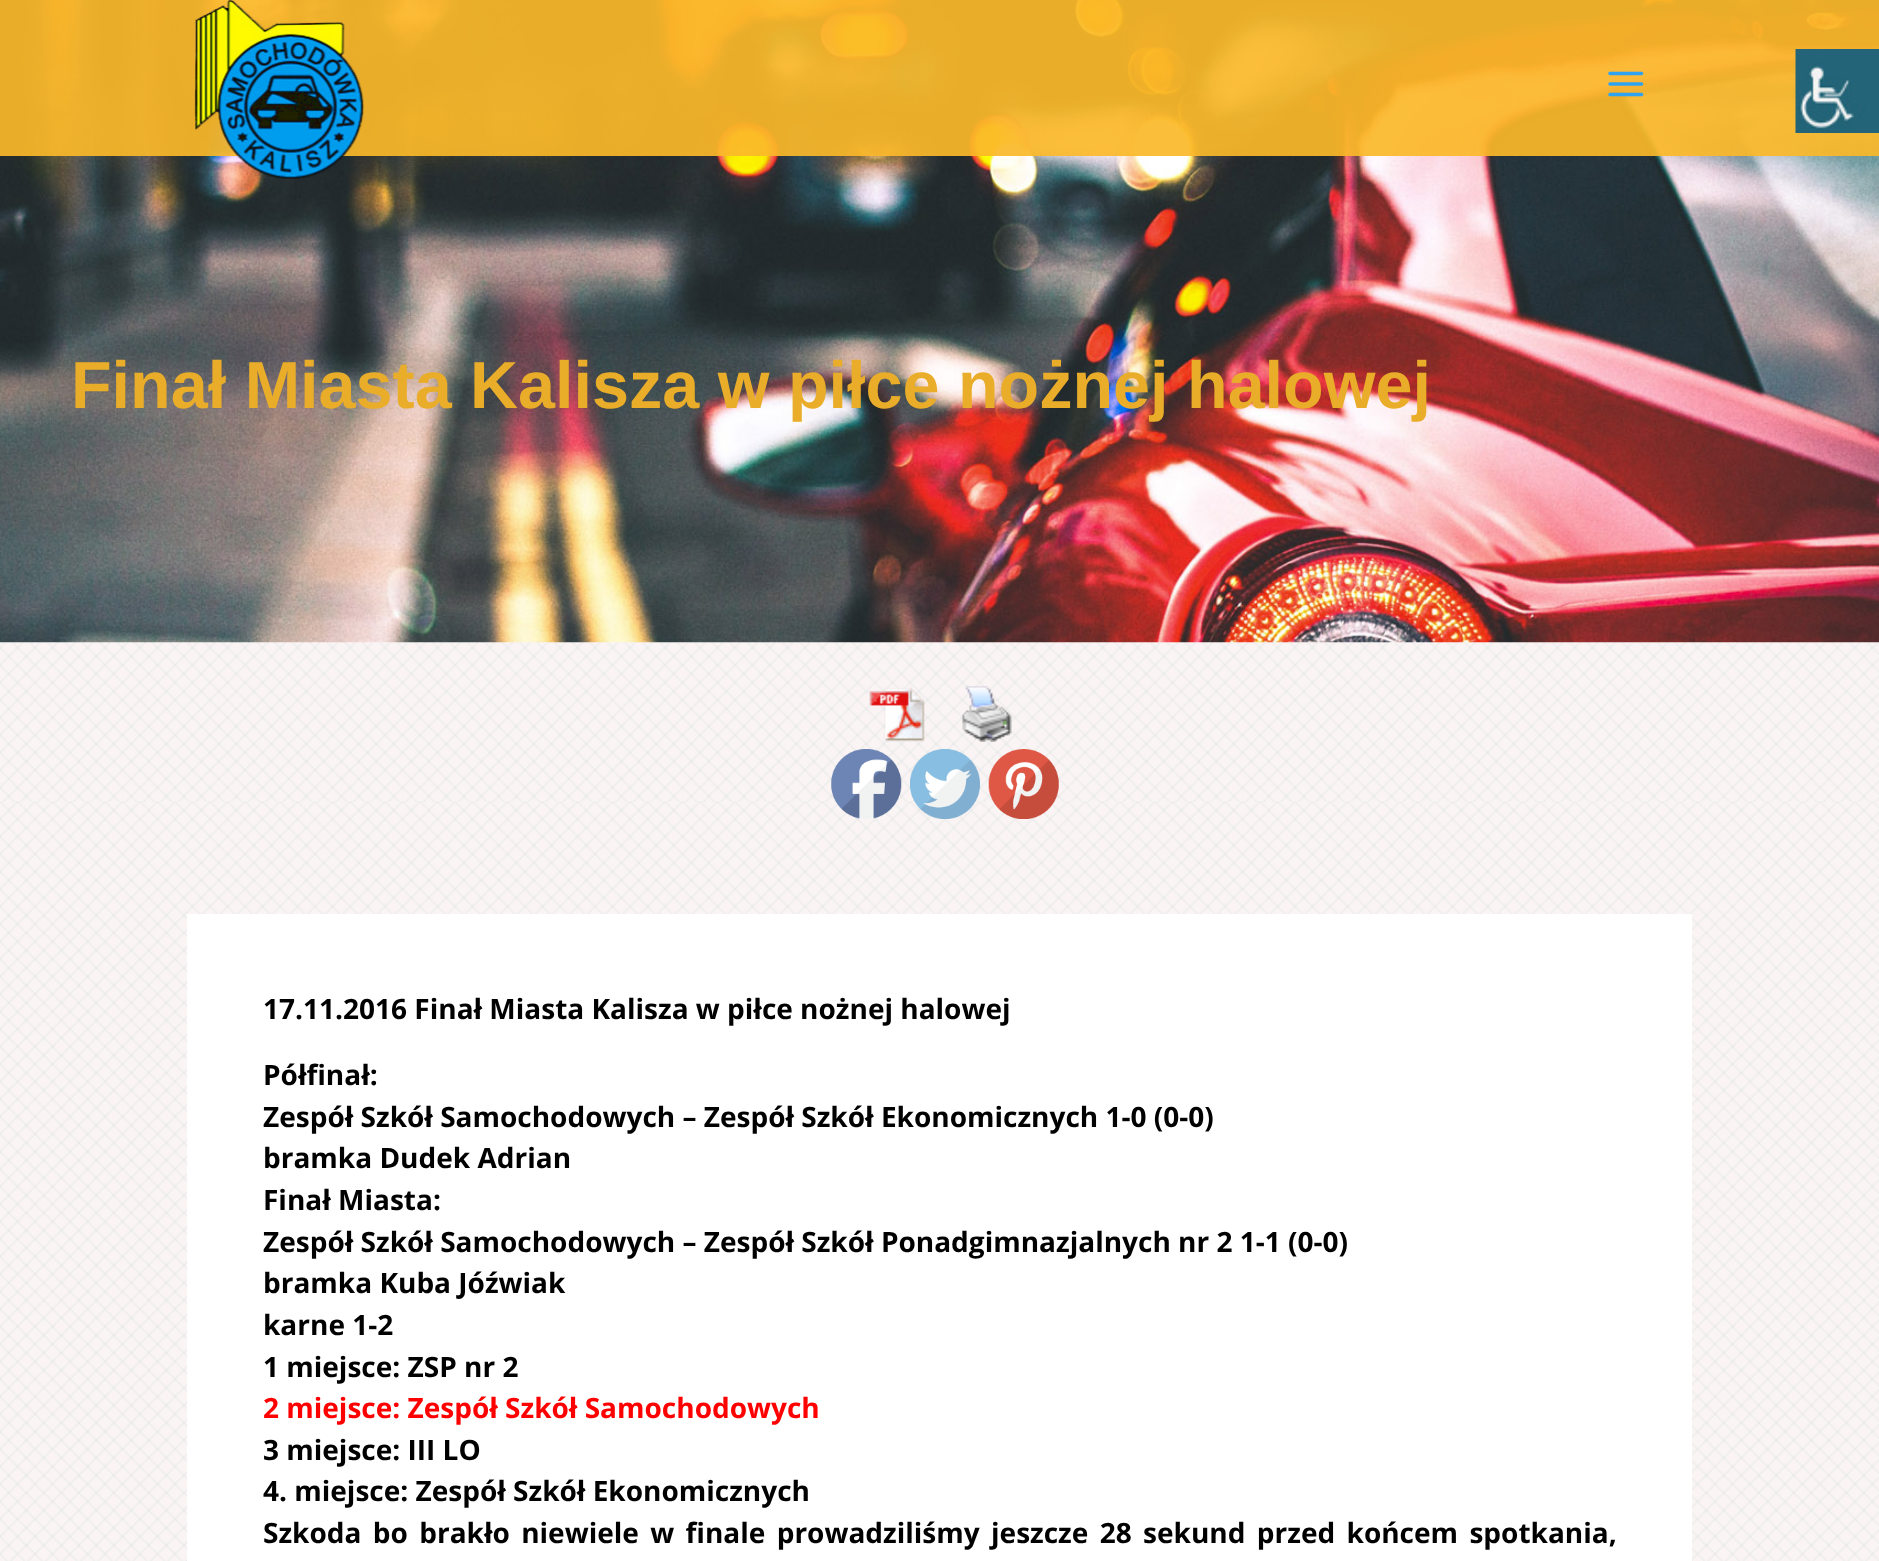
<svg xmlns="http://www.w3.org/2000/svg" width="1879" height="1561">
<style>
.a{font:bold 66.5px Liberation Sans;fill:#eaad29}
.b{font:bold 28px Open Sans;fill:#000}
.c{font:bold 28px Open Sans;fill:#f00}
</style>
<rect width="100%" height="100%" fill="#faf4f4"/>
<image href="4.png" x="0" y="642" width="1879" height="160"/>
<image href="5.png" x="0" y="0" width="1879" height="643"/>
<path fill="#fbb829eb" d="M0 0h1879v156H0z"/>
<image href="1.png" x="1795" y="49" width="84" height="84"/>
<image href="2.png" x="194" y="0" width="170" height="179"/>
<image href="3.png" x="1608" y="71" width="36" height="26"/>
<image href="6.png" x="869" y="686" width="143" height="56"/>
<image href="10.png" x="0" y="801" width="1879" height="760"/>
<image href="7.png" x="831" y="749" width="71" height="70"/>
<image href="8.png" x="910" y="749" width="70" height="70"/>
<image href="9.png" x="988" y="749" width="71" height="70"/>
<path fill="#fff" d="M187 914h1505v647H187z"/>
<text class="a" x="71" y="408">Finał Miasta Kalisza w piłce nożnej halowej</text>
<text class="b" x="263" y="1019">17.11.2016 Finał Miasta Kalisza w piłce nożnej halowej</text>
<text class="b" x="263" y="1085">Półfinał:</text>
<text class="b" x="263" y="1127">Zespół Szkół Samochodowych – Zespół Szkół Ekonomicznych 1-0 (0-0)</text>
<text class="b" x="263" y="1168">bramka Dudek Adrian</text>
<text class="b" x="263" y="1210">Finał Miasta:</text>
<text class="b" x="263" y="1252">Zespół Szkół Samochodowych – Zespół Szkół Ponadgimnazjalnych nr 2 1-1 (0-0)</text>
<text class="b" x="263" y="1293">bramka Kuba Jóźwiak</text>
<text class="b" x="263" y="1335">karne 1-2</text>
<text class="b" x="263" y="1377">1 miejsce: ZSP nr 2</text>
<text class="c" x="263" y="1418">2 miejsce: Zespół Szkół Samochodowych</text>
<text class="b" x="263" y="1460">3 miejsce: III LO</text>
<text class="b" x="263" y="1501">4. miejsce: Zespół Szkół Ekonomicznych</text>
<text class="b" x="263" y="1543" word-spacing="4.1">Szkoda bo brakło niewiele w finale prowadziliśmy jeszcze 28 sekund przed końcem spotkania,</text>
</svg>
